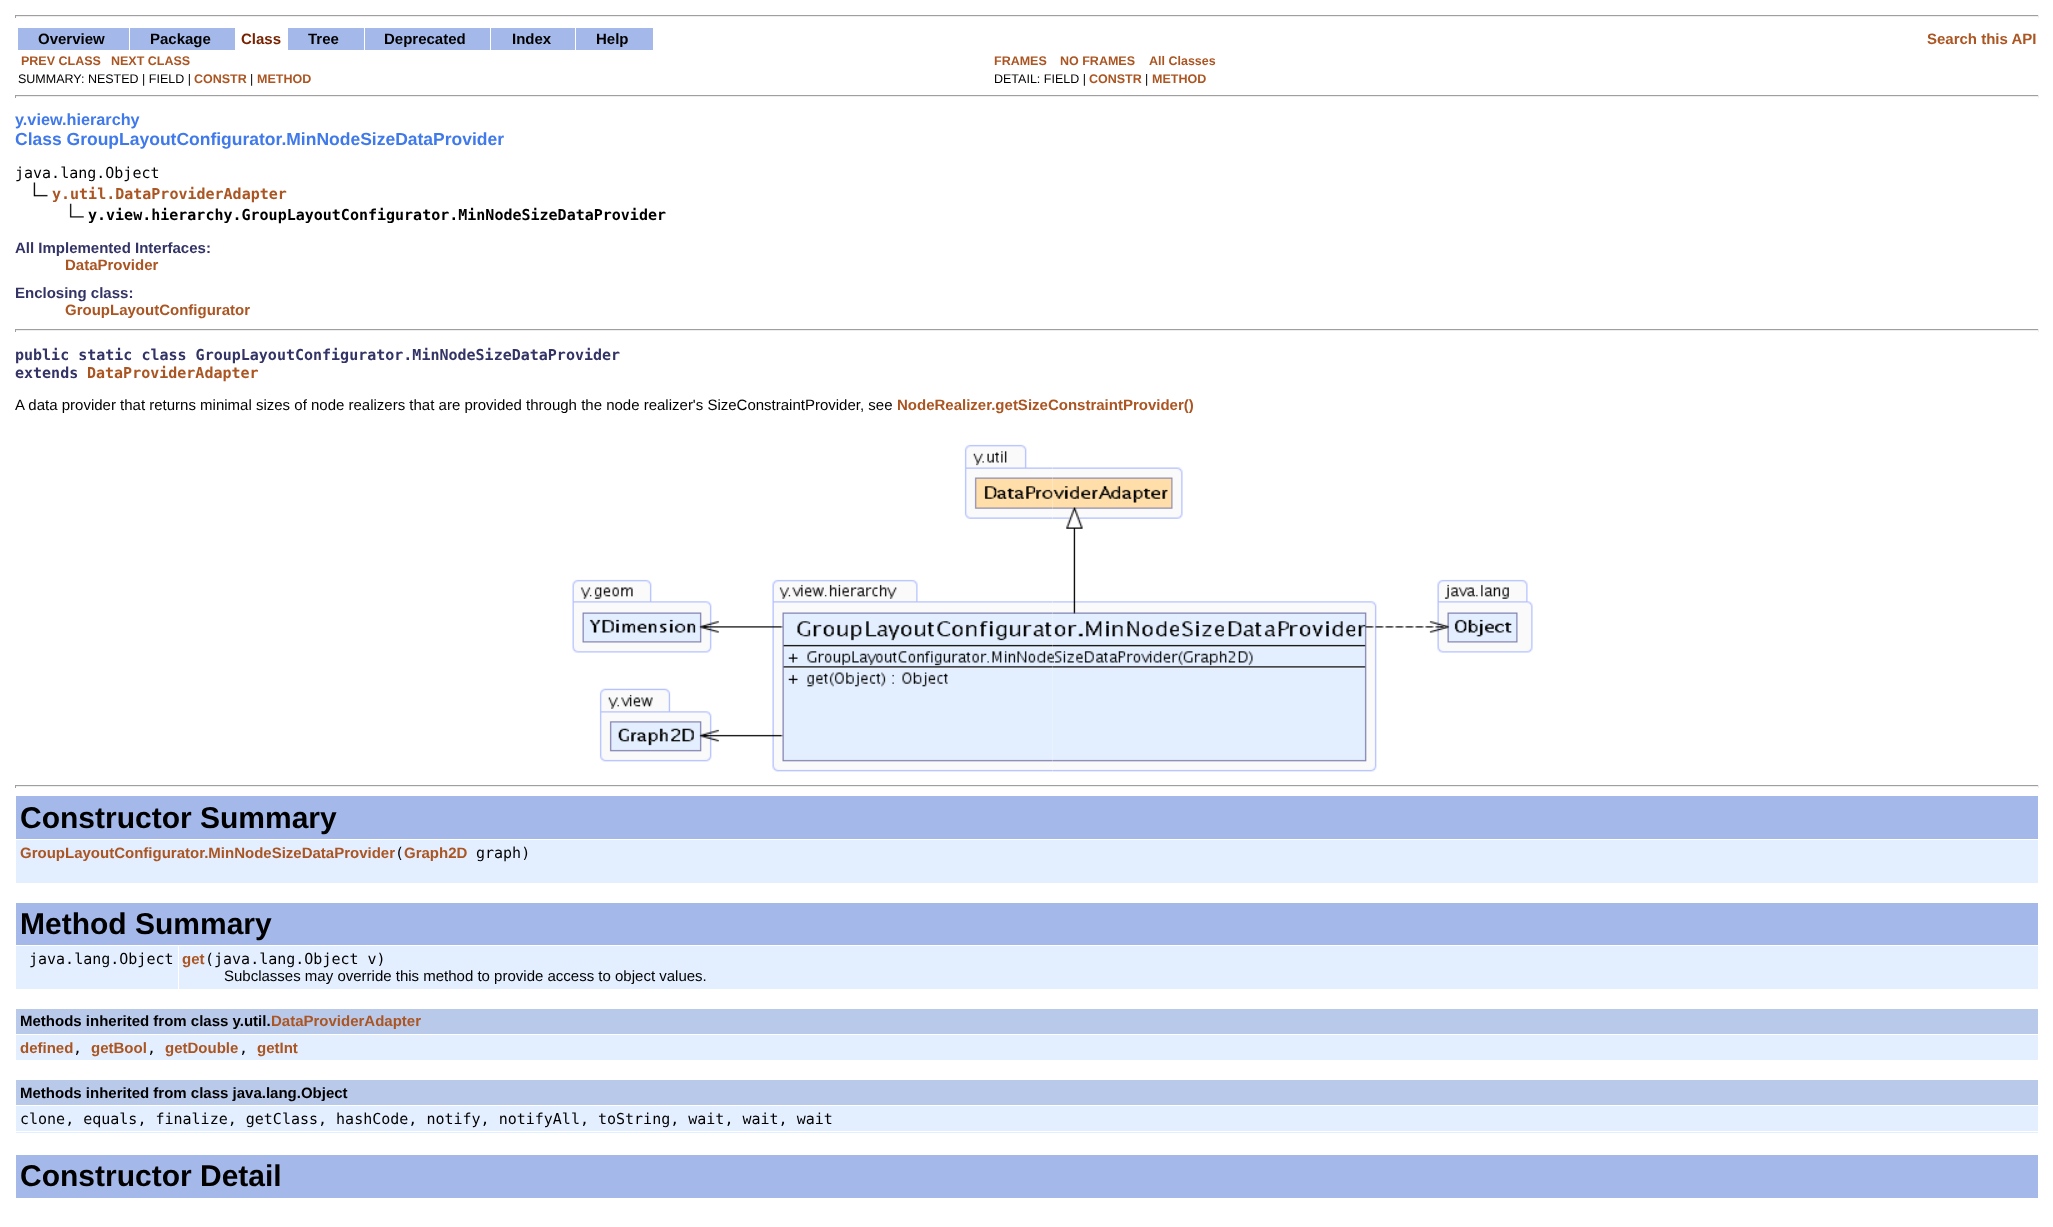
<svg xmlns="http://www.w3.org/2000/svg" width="2053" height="1227">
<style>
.a{font:bold 15px Liberation Sans;fill:#000}
.b{font:bold 15px Liberation Sans;fill:#720}
.c{font:bold 15px Liberation Sans;fill:#a52}
.d{font:bold 12.5px Liberation Sans;fill:#a52}
.e{font:12.5px Liberation Sans;fill:#000}
.f{font:bold 16.25px Liberation Sans;fill:#4079ea}
.g{font:bold 17.5px Liberation Sans;fill:#4079ea}
.h{font:15px DejaVu Sans Mono;fill:#000}
.i{font:bold 15px DejaVu Sans Mono;fill:#a52}
.j{font:bold 15px DejaVu Sans Mono;fill:#000}
.k{font:bold 15px Liberation Sans;fill:#336}
.l{font:bold 15px DejaVu Sans Mono;fill:#336}
.m{font:15px Liberation Sans;fill:#000}
.n{font:bold 30px Liberation Sans;fill:#000}
</style>
<rect width="100%" height="100%" fill="#fff"/>
<path fill="#9f9f9f" d="M15 15h2024v1H15z"/>
<path fill="#eee" d="M2038 15h1v3H2038z"/>
<path fill="#eee" d="M15 16h2024v1H15z"/>
<path fill="#9f9f9f" d="M15 15h1v3H15z"/>
<path fill="#a4b9ea" d="M18 28h111v22H18z"/>
<path fill="#a4b9ea" d="M130 28h105v22H130z"/>
<path fill="#a4b9ea" d="M288 28h76v22H288z"/>
<path fill="#a4b9ea" d="M365 28h125v22H365z"/>
<path fill="#a4b9ea" d="M491 28h84v22H491z"/>
<path fill="#a4b9ea" d="M576 28h77v22H576z"/>
<path fill="#9f9f9f" d="M15 95h2024v1H15z"/>
<path fill="#eee" d="M2038 95h1v3H2038z"/>
<path fill="#eee" d="M15 96h2024v1H15z"/>
<path fill="#9f9f9f" d="M15 95h1v3H15z"/>
<image href="1.png" x="33" y="182" width="15" height="15"/>
<image href="2.png" x="69" y="203" width="15" height="15"/>
<path fill="#9f9f9f" d="M15 329h2024v1H15z"/>
<path fill="#eee" d="M2038 329h1v3H2038z"/>
<path fill="#eee" d="M15 330h2024v1H15z"/>
<path fill="#9f9f9f" d="M15 329h1v3H15z"/>
<image href="3.png" x="572" y="444" width="481" height="328"/>
<image href="4.png" x="1052" y="467" width="481" height="305"/>
<path fill="#9f9f9f" d="M15 785h2024v1H15z"/>
<path fill="#eee" d="M2038 785h1v3H2038z"/>
<path fill="#eee" d="M15 786h2024v1H15z"/>
<path fill="#9f9f9f" d="M15 785h1v3H15z"/>
<path fill="#a4b9ea" d="M16 796h2022v43H16z"/>
<path fill="#e3eefe" d="M16 840h2022v43H16z"/>
<path fill="#a4b9ea" d="M16 903h2022v42H16z"/>
<path fill="#e3eefe" d="M16 946h2022v43H16z"/>
<path fill="#fff" d="M178 945h1v45H178z"/>
<path fill="#b9c9ea" d="M16 1009h2022v25H16z"/>
<path fill="#e3eefe" d="M16 1035h2022v25H16z"/>
<path fill="#e3eefe" d="M16 1106h2022v27H16z"/>
<path fill="#fff" d="M15 1131h2024v1H15z"/>
<path fill="#b9c9ea" d="M16 1080h2022v25H16z"/>
<path fill="#a4b9ea" d="M16 1155h2022v43H16z"/>
<text class="a" x="38" y="44">Overview</text>
<text class="a" x="150" y="44">Package</text>
<text class="b" x="241" y="44">Class</text>
<text class="a" x="308" y="44">Tree</text>
<text class="a" x="384" y="44">Deprecated</text>
<text class="a" x="512" y="44">Index</text>
<text class="a" x="596" y="44">Help</text>
<text class="c" x="1927" y="44">Search this API</text>
<text class="d" x="21" y="65">PREV CLASS</text>
<text class="d" x="111" y="65">NEXT CLASS</text>
<text class="d" x="994" y="65">FRAMES</text>
<text class="d" x="1060" y="65">NO FRAMES</text>
<text class="d" x="1149" y="65">All Classes</text>
<text class="e" x="18" y="83">SUMMARY: NESTED | FIELD |</text>
<text class="d" x="194" y="83">CONSTR</text>
<text class="e" x="250" y="83">|</text>
<text class="d" x="257" y="83">METHOD</text>
<text class="e" x="994" y="83">DETAIL: FIELD |</text>
<text class="d" x="1089" y="83">CONSTR</text>
<text class="e" x="1145" y="83">|</text>
<text class="d" x="1152" y="83">METHOD</text>
<text class="f" x="15" y="125">y.view.hierarchy</text>
<text class="g" x="15" y="145">Class GroupLayoutConfigurator.MinNodeSizeDataProvider</text>
<text class="h" x="15" y="178">java.lang.Object</text>
<text class="i" x="52" y="199">y.util.DataProviderAdapter</text>
<text class="j" x="88" y="220">y.view.hierarchy.GroupLayoutConfigurator.MinNodeSizeDataProvider</text>
<text class="k" x="15" y="253">All Implemented Interfaces:</text>
<text class="c" x="65" y="270">DataProvider</text>
<text class="k" x="15" y="298">Enclosing class:</text>
<text class="c" x="65" y="315">GroupLayoutConfigurator</text>
<text class="l" x="15" y="360">public static class GroupLayoutConfigurator.MinNodeSizeDataProvider</text>
<text class="l" x="15" y="378">extends</text>
<text class="i" x="87" y="378">DataProviderAdapter</text>
<text class="m" x="15" y="410">A data provider that returns minimal sizes of node realizers that are provided through the node realizer's SizeConstraintProvider, see</text>
<text class="c" x="897" y="410">NodeRealizer.getSizeConstraintProvider()</text>
<text class="n" x="20" y="828">Constructor Summary</text>
<text class="c" x="20" y="858">GroupLayoutConfigurator.MinNodeSizeDataProvider</text>
<text class="h" x="395" y="858">(</text>
<text class="c" x="404" y="858">Graph2D</text>
<text class="h" x="476" y="858">graph)</text>
<text class="n" x="20" y="934">Method Summary</text>
<text class="h" x="29" y="964">java.lang.Object</text>
<text class="c" x="182" y="964">get</text>
<text class="h" x="205" y="964">(java.lang.Object v)</text>
<text class="m" x="224" y="981">Subclasses may override this method to provide access to object values.</text>
<text class="a" x="20" y="1026">Methods inherited from class y.util.</text>
<text class="c" x="271" y="1026">DataProviderAdapter</text>
<text class="c" x="20" y="1053">defined</text>
<text class="h" x="73" y="1053">,</text>
<text class="c" x="91" y="1053">getBool</text>
<text class="h" x="147" y="1053">,</text>
<text class="c" x="165" y="1053">getDouble</text>
<text class="h" x="239" y="1053">,</text>
<text class="c" x="257" y="1053">getInt</text>
<text class="a" x="20" y="1098">Methods inherited from class java.lang.Object</text>
<text class="h" x="20" y="1124">clone, equals, finalize, getClass, hashCode, notify, notifyAll, toString, wait, wait, wait</text>
<text class="n" x="20" y="1186">Constructor Detail</text>
</svg>
